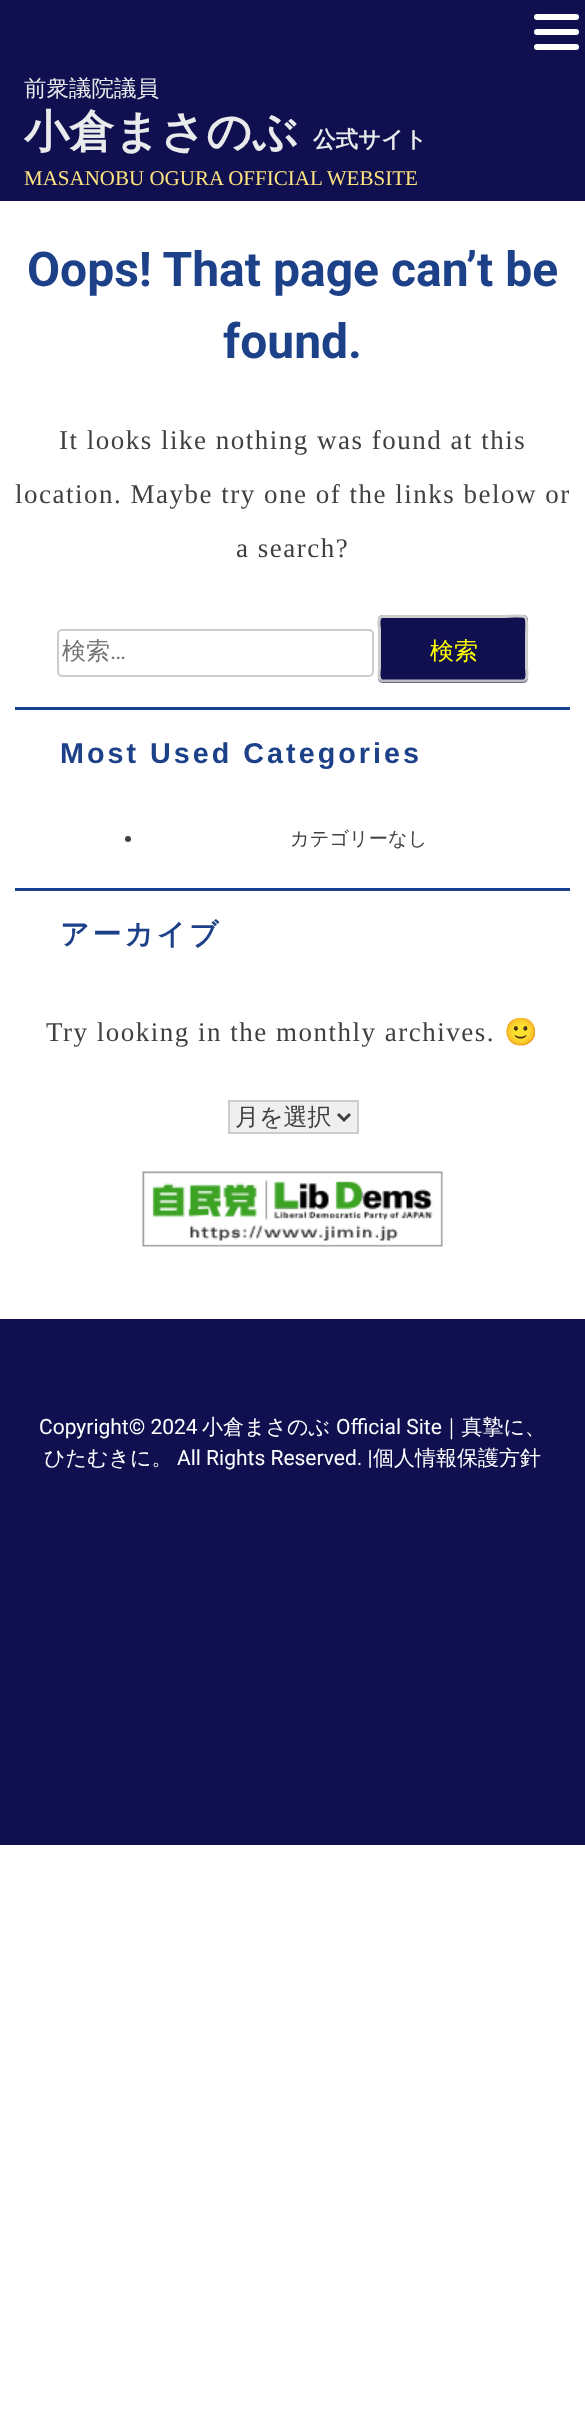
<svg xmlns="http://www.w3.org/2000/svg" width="585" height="2420">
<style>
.a{font:500 22.5px WenQuanYi Zen Hei;fill:#e9eaeb}
.b{font:bold 45px WenQuanYi Zen Hei;fill:#e9eaeb}
.c{font:bold 22.5px WenQuanYi Zen Hei;fill:#e9eaeb}
.d{font:21px Liberation Serif;fill:#ffe47f}
.e{font:bold 48px Roboto;fill:#1d4188}
.f{font:27px Liberation Serif;letter-spacing:1.5px;fill:#404040}
.g{font:500 24px WenQuanYi Zen Hei;fill:#757575}
.h{font:24px Roboto;fill:#757575}
.i{font:500 24px WenQuanYi Zen Hei;fill:#ff0}
.j{font:bold 28.75px Liberation Sans;letter-spacing:3px;fill:#1d4188}
.k{font:500 19.25px WenQuanYi Zen Hei;fill:#404040}
.l{font:bold 28.75px WenQuanYi Zen Hei;letter-spacing:3px;fill:#1d4188}
.m{font:27px Noto Color Emoji;letter-spacing:1.5px;fill:#404040}
.n{font:500 24px WenQuanYi Zen Hei;fill:#404040}
.o{font:21px Roboto;fill:#fff}
.p{font:500 21px WenQuanYi Zen Hei;fill:#fff}
</style>
<rect width="100%" height="100%" fill="#fff"/>
<path fill="#101051" d="M0 0h585v201H0z"/>
<rect fill="#fff" x="534" y="14" width="45" height="6" rx="3"/>
<rect fill="#fff" x="534" y="29" width="45" height="6" rx="3"/>
<rect fill="#fff" x="534" y="44" width="45" height="6" rx="3"/>
<rect fill="none" stroke="#ccc" stroke-width="2" x="58" y="630" width="315" height="46" rx="4"/>
<rect fill="#101051" x="378" y="615" width="150" height="68" rx="5"/>
<path fill="none" stroke="#bbb" stroke-width="3" d="M525.5 680l-2 1h-141.5l-1.5-1"/>
<path fill="none" stroke="#ccc" stroke-width="3" d="M380.5 680c-2.5-2-1-11.5-1-12v-39c0-.5-2.5-12.5 3-12.5h117.5c31.5 0 26.5-6.5 26.5 22.5v29c0 .5 1.5 10-1 12"/>
<path fill="#17418f" d="M15 707h555v3H15z"/>
<circle fill="#404040" cx="128" cy="839" r="3"/>
<path fill="#17418f" d="M15 888h555v3H15z"/>
<path fill="#efefef" stroke="#ccc" stroke-width="2" d="M229 1101h129v32H229z"/>
<path fill="none" stroke="#404040" stroke-width="3" d="M338 1114l6 6l6-6"/>
<image href="1.png" x="142" y="1171" width="301" height="76"/>
<path fill="#101051" d="M0 1319h585v526H0z"/>
<text class="a" x="24" y="96">前衆議院議員</text>
<text class="b" x="24" y="147">小倉まさのぶ</text>
<text class="c" x="313" y="147">公式サイト</text>
<text class="d" x="24" y="185">MASANOBU OGURA OFFICIAL WEBSITE</text>
<text class="e" x="27" y="286">Oops! That page can’t be</text>
<text class="e" x="223" y="358">found.</text>
<text class="f" x="59" y="449">It looks like nothing was found at this</text>
<text class="f" x="15" y="503">location. Maybe try one of the links below or</text>
<text class="f" x="236" y="557">a search?</text>
<text class="g" x="62" y="659">検索</text>
<text class="h" x="110" y="659">…</text>
<text class="i" x="430" y="659">検索</text>
<text class="j" x="60" y="763">Most Used Categories</text>
<text class="k" x="290" y="845">カテゴリーなし</text>
<text class="l" x="60" y="944">アーカイブ</text>
<text class="f" x="46" y="1041">Try looking in the monthly archives.</text>
<text class="m" x="504" y="1041">🙂</text>
<text class="n" x="235" y="1125">月を選択</text>
<text class="o" x="39" y="1434">Copyright© 2024</text>
<text class="p" x="202" y="1434">小倉まさのぶ</text>
<text class="o" x="336" y="1434">Official Site</text>
<text class="p" x="441" y="1434">｜真摯に、</text>
<text class="p" x="44" y="1465">ひたむきに。</text>
<text class="o" x="177" y="1465">All Rights Reserved. |</text>
<text class="p" x="373" y="1465">個人情報保護方針</text>
</svg>
